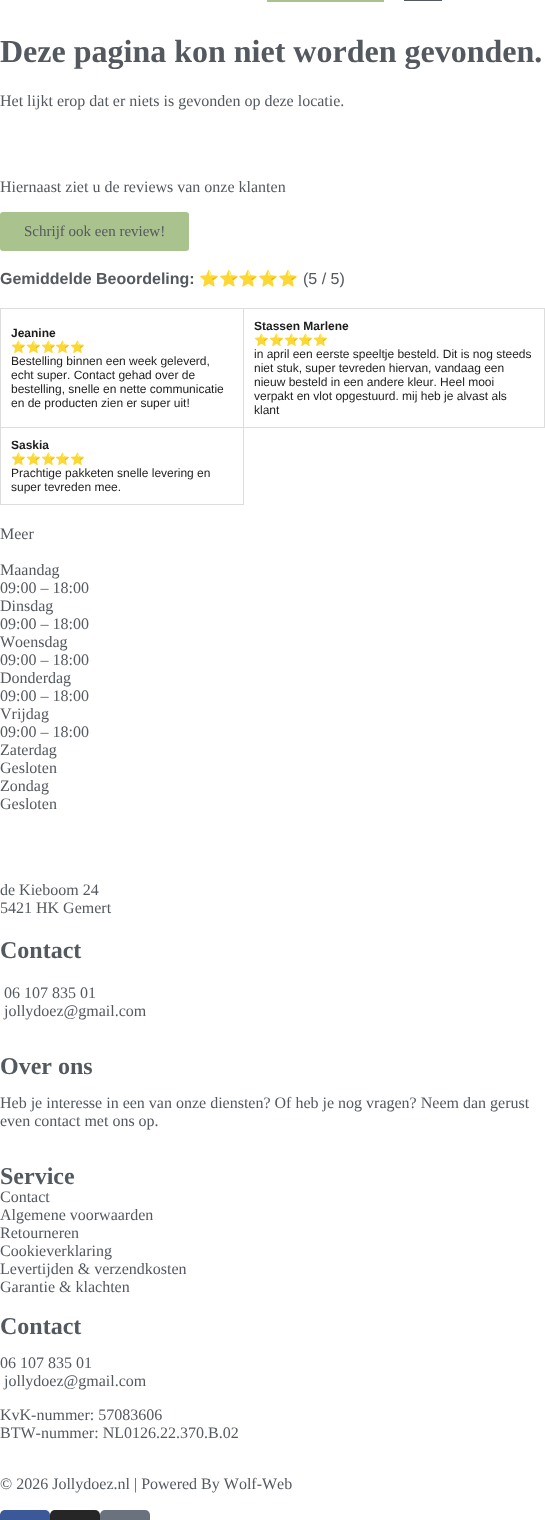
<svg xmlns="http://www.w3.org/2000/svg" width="545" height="1520">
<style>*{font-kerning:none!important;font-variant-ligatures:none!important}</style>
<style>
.a{font:bold 32px Liberation Serif;fill:#54595f}
.b{font:16px Liberation Serif;fill:#54595f}
.c{font:15px Liberation Serif;fill:#54595f}
.d{font:bold 16px Liberation Sans;fill:#54595f}
.e{font:16px Noto Color Emoji;fill:#54595f}
.f{font:16px Liberation Sans;fill:#54595f}
.g{font:bold 12px Liberation Sans;fill:#1c1c1c}
.h{font:12px Noto Color Emoji;fill:#1c1c1c}
.i{font:12px Liberation Sans;fill:#1c1c1c}
.j{font:bold 24px Liberation Serif;fill:#54595f}
</style>
<rect width="100%" height="100%" fill="#fff"/>
<path fill="#aac28e" d="M267 0h117v2H267z"/>
<path fill="#54595f" d="M404 0h38v1H404z"/>
<rect fill="#aac28e" y="212" width="189" height="39" rx="3"/>
<path fill="#ddd" d="M243 308h302v1H243z"/>
<path fill="#ddd" d="M544 308h1v120H544z"/>
<path fill="#ddd" d="M0 427h244v1H0z"/>
<path fill="#ddd" d="M243 427h1v78H243z"/>
<path fill="#ddd" d="M243 427h302v1H243z"/>
<path fill="#ddd" d="M243 308h1v120H243z"/>
<path fill="#ddd" d="M0 308h244v1H0z"/>
<path fill="#ddd" d="M0 504h244v1H0z"/>
<path fill="#ddd" d="M0 427h1v78H0z"/>
<path fill="#ddd" d="M0 308h1v120H0z"/>
<rect fill="#3b5998" y="1510" width="50" height="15" rx="5"/>
<rect fill="#262626" x="50" y="1510" width="50" height="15" rx="5"/>
<rect fill="#69727d" x="100" y="1510" width="50" height="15" rx="5"/>
<text class="a" x="0" y="62">Deze pagina kon niet worden gevonden.</text>
<text class="b" x="0" y="106">Het lijkt erop dat er niets is gevonden op deze locatie.</text>
<text class="b" x="0" y="192">Hiernaast ziet u de reviews van onze klanten</text>
<text class="c" x="24" y="236">Schrijf ook een review!</text>
<text class="d" x="0" y="284">Gemiddelde Beoordeling:</text>
<text class="e" x="199" y="284">⭐⭐⭐⭐⭐</text>
<text class="f" x="303" y="284">(5 / 5)</text>
<text class="g" x="11" y="337">Jeanine</text>
<text class="h" x="11" y="351">⭐⭐⭐⭐⭐</text>
<text class="i" x="11" y="365">Bestelling binnen een week geleverd,</text>
<text class="i" x="11" y="379">echt super. Contact gehad over de</text>
<text class="i" x="11" y="393">bestelling, snelle en nette communicatie</text>
<text class="i" x="11" y="407">en de producten zien er super uit!</text>
<text class="g" x="254" y="330">Stassen Marlene</text>
<text class="h" x="254" y="344">⭐⭐⭐⭐⭐</text>
<text class="i" x="254" y="358">in april een eerste speeltje besteld. Dit is nog steeds</text>
<text class="i" x="254" y="372">niet stuk, super tevreden hiervan, vandaag een</text>
<text class="i" x="254" y="386">nieuw besteld in een andere kleur. Heel mooi</text>
<text class="i" x="254" y="400">verpakt en vlot opgestuurd. mij heb je alvast als</text>
<text class="i" x="254" y="414">klant</text>
<text class="g" x="11" y="449">Saskia</text>
<text class="h" x="11" y="463">⭐⭐⭐⭐⭐</text>
<text class="i" x="11" y="477">Prachtige pakketen snelle levering en</text>
<text class="i" x="11" y="491">super tevreden mee.</text>
<text class="b" x="0" y="539">Meer</text>
<text class="b" x="0" y="575">Maandag</text>
<text class="b" x="0" y="593">09:00 – 18:00</text>
<text class="b" x="0" y="611">Dinsdag</text>
<text class="b" x="0" y="629">09:00 – 18:00</text>
<text class="b" x="0" y="647">Woensdag</text>
<text class="b" x="0" y="665">09:00 – 18:00</text>
<text class="b" x="0" y="683">Donderdag</text>
<text class="b" x="0" y="701">09:00 – 18:00</text>
<text class="b" x="0" y="719">Vrijdag</text>
<text class="b" x="0" y="737">09:00 – 18:00</text>
<text class="b" x="0" y="755">Zaterdag</text>
<text class="b" x="0" y="773">Gesloten</text>
<text class="b" x="0" y="791">Zondag</text>
<text class="b" x="0" y="809">Gesloten</text>
<text class="b" x="0" y="895">de Kieboom 24</text>
<text class="b" x="0" y="913">5421 HK Gemert</text>
<text class="j" x="0" y="958">Contact</text>
<text class="b" x="4" y="998">06 107 835 01</text>
<text class="b" x="4" y="1016">jollydoez@gmail.com</text>
<text class="j" x="0" y="1074">Over ons</text>
<text class="b" x="0" y="1108">Heb je interesse in een van onze diensten? Of heb je nog vragen? Neem dan gerust</text>
<text class="b" x="0" y="1126">even contact met ons op.</text>
<text class="j" x="0" y="1184">Service</text>
<text class="b" x="0" y="1202">Contact</text>
<text class="b" x="0" y="1220">Algemene voorwaarden</text>
<text class="b" x="0" y="1238">Retourneren</text>
<text class="b" x="0" y="1256">Cookieverklaring</text>
<text class="b" x="0" y="1274">Levertijden &amp; verzendkosten</text>
<text class="b" x="0" y="1292">Garantie &amp; klachten</text>
<text class="j" x="0" y="1334">Contact</text>
<text class="b" x="0" y="1368">06 107 835 01</text>
<text class="b" x="4" y="1386">jollydoez@gmail.com</text>
<text class="b" x="0" y="1420">KvK-nummer: 57083606</text>
<text class="b" x="0" y="1438">BTW-nummer: NL0126.22.370.B.02</text>
<text class="b" x="0" y="1489">© 2026 Jollydoez.nl | Powered By Wolf-Web</text>
</svg>
